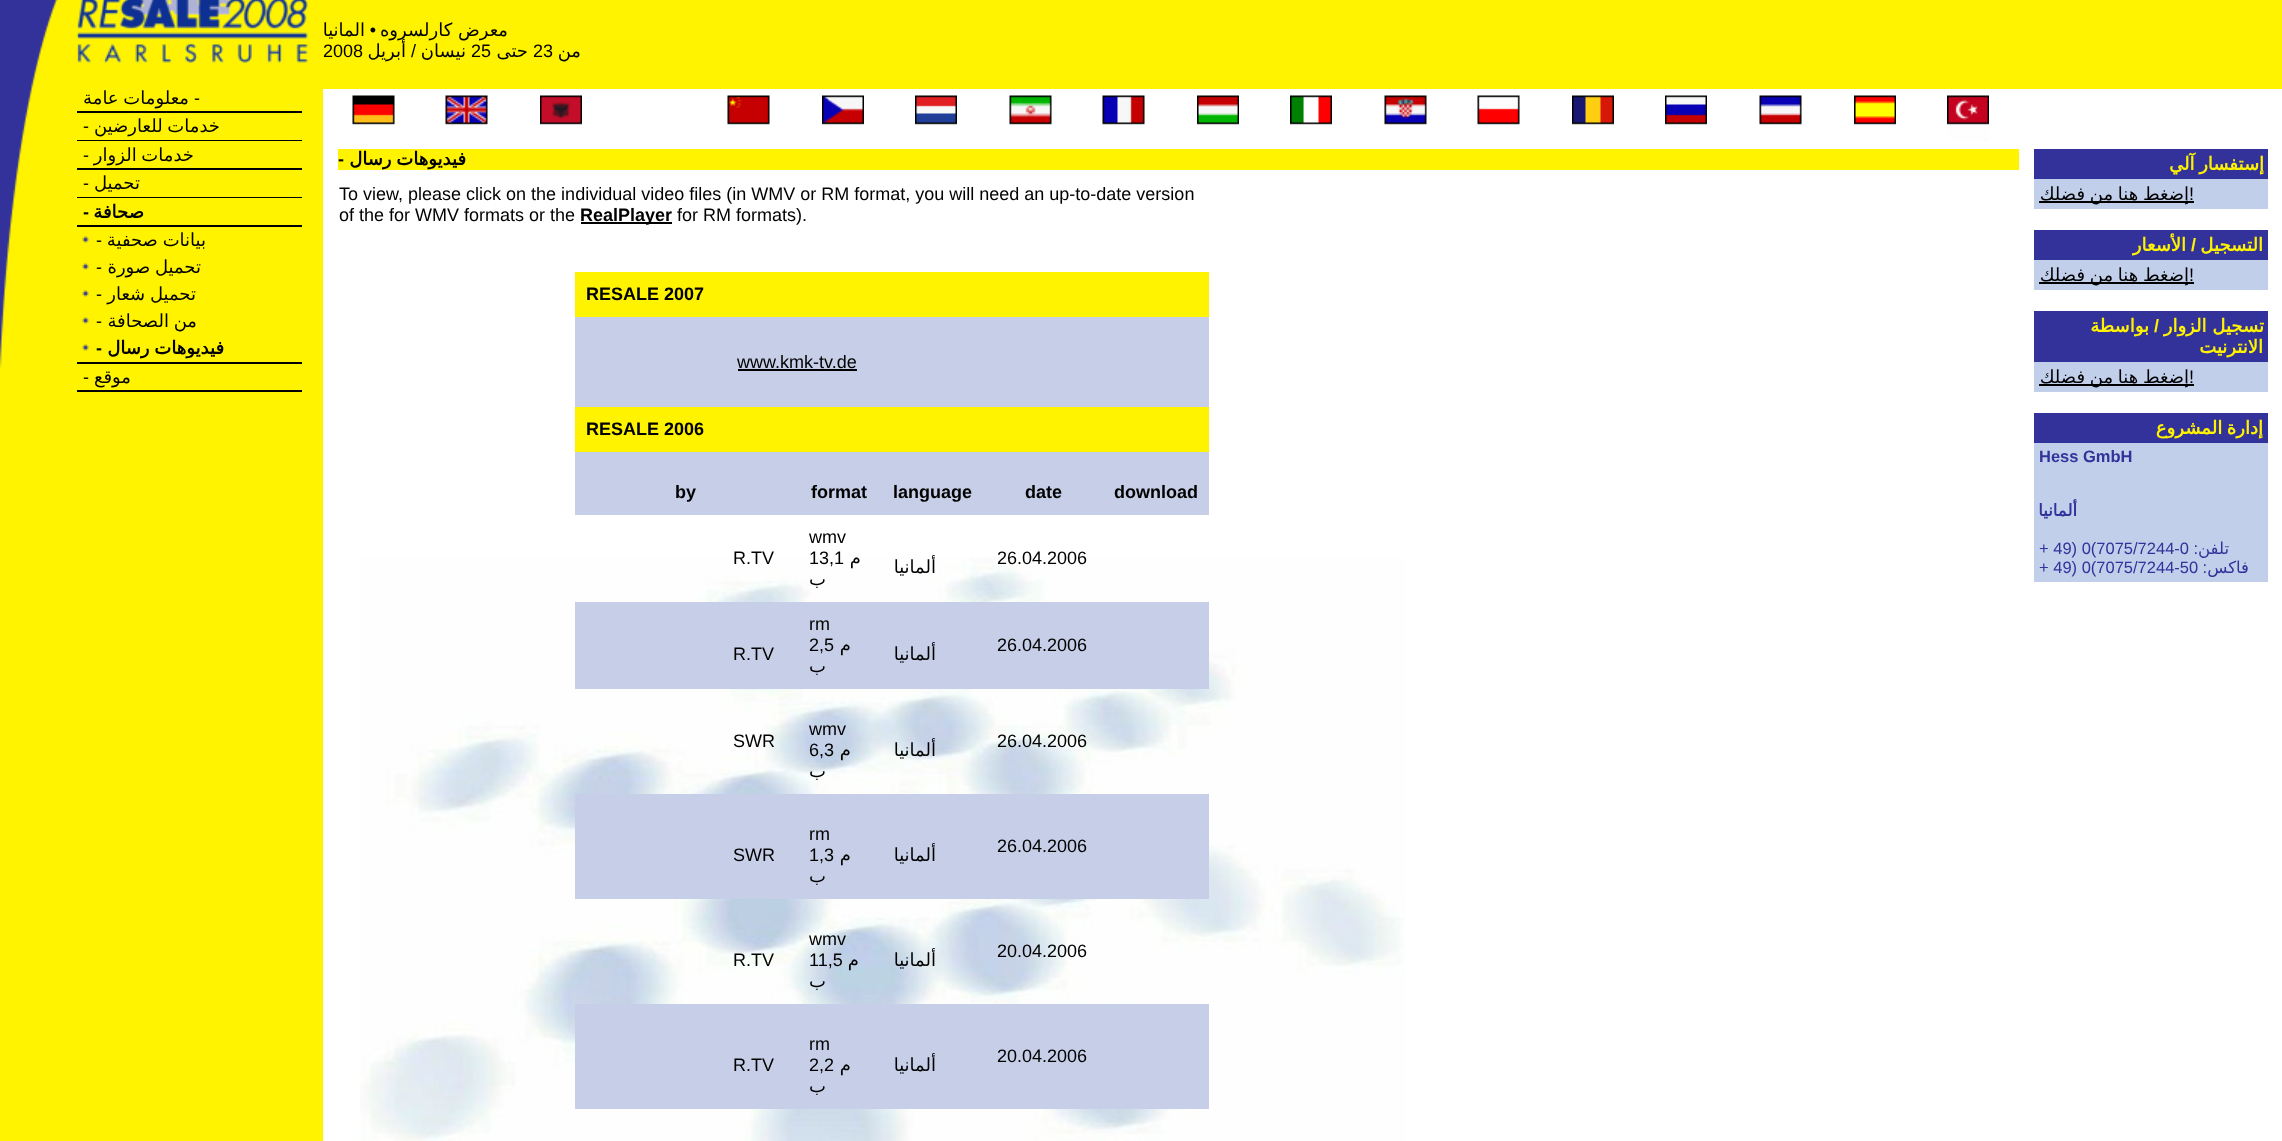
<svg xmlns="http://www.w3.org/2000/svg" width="2282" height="1141">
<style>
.a{font:18px DejaVu Sans;direction:rtl;fill:#000}
.b{font:18px Liberation Sans;direction:rtl;fill:#000}
.c{font:18px Liberation Sans;fill:#000}
.d{font:bold 18px Liberation Sans;fill:#000}
.e{font:bold 18px DejaVu Sans;direction:rtl;fill:#000}
.f{font:bold 18px DejaVu Sans;direction:rtl;fill:#fff300}
.g{font:bold 18px Liberation Sans;direction:rtl;fill:#fff300}
.h{font:bold 16.5px Liberation Sans;fill:#32329a}
.i{font:bold 16.5px DejaVu Sans;direction:rtl;fill:#32329a}
.j{font:16.5px Liberation Sans;fill:#32329a}
.k{font:16.5px Liberation Sans;direction:rtl;fill:#32329a}
.l{font:16.5px DejaVu Sans;direction:rtl;fill:#32329a}
</style>
<rect width="100%" height="100%" fill="#fff"/>
<path fill="#fff300" d="M0 0h323v1141H0z"/>
<image href="1.png" x="0" y="0" width="58" height="368"/>
<path fill="#fff300" d="M323 0h1959v89H323z"/>
<image href="2.png" x="352" y="95" width="43" height="30"/>
<image href="3.png" x="445" y="95" width="43" height="30"/>
<image href="4.png" x="540" y="95" width="42" height="30"/>
<image href="5.png" x="727" y="95" width="43" height="30"/>
<image href="6.png" x="822" y="95" width="42" height="30"/>
<image href="7.png" x="915" y="95" width="42" height="30"/>
<image href="8.png" x="1009" y="95" width="43" height="30"/>
<image href="9.png" x="1102" y="95" width="43" height="30"/>
<image href="10.png" x="1197" y="95" width="42" height="30"/>
<image href="11.png" x="1290" y="95" width="42" height="30"/>
<image href="12.png" x="1384" y="95" width="43" height="30"/>
<image href="13.png" x="1477" y="95" width="43" height="30"/>
<image href="14.png" x="1572" y="95" width="42" height="30"/>
<image href="15.png" x="1665" y="95" width="42" height="30"/>
<image href="16.png" x="1759" y="95" width="43" height="30"/>
<image href="17.png" x="1854" y="95" width="42" height="30"/>
<image href="18.png" x="1947" y="95" width="42" height="46"/>
<path fill="#fff300" d="M338 149h1681v21H338z"/>
<image href="19.png" x="360" y="557" width="1045" height="584"/>
<path fill="#000" d="M581 222h91v2H581z"/>
<path fill="#fff300" d="M575 272h634v45H575z"/>
<path fill="#c6cfe7" d="M575 317h634v90H575z"/>
<path fill="#000" d="M738 369h119v2H738z"/>
<path fill="#fff300" d="M575 407h634v45H575z"/>
<path fill="#c6cfe7" d="M575 452h634v63H575z"/>
<path fill="#c6cfe7" d="M575 602h634v87H575z"/>
<path fill="#c6cfe7" d="M575 794h634v105H575z"/>
<path fill="#c6cfe7" d="M575 1004h634v105H575z"/>
<path fill="#32329a" d="M2034 149h234v30H2034z"/>
<path fill="#c1cfea" d="M2034 179h234v30H2034z"/>
<path fill="#000" d="M2039 201h150v2H2039z"/>
<path fill="#000" d="M2189 201h5v2H2189z"/>
<path fill="#32329a" d="M2034 230h234v30H2034z"/>
<path fill="#c1cfea" d="M2034 260h234v30H2034z"/>
<path fill="#000" d="M2039 282h150v2H2039z"/>
<path fill="#000" d="M2189 282h5v2H2189z"/>
<path fill="#32329a" d="M2034 311h234v51H2034z"/>
<path fill="#c1cfea" d="M2034 362h234v30H2034z"/>
<path fill="#000" d="M2039 384h150v2H2039z"/>
<path fill="#000" d="M2189 384h5v2H2189z"/>
<path fill="#32329a" d="M2034 413h234v30H2034z"/>
<path fill="#c1cfea" d="M2034 443h234v139H2034z"/>
<image href="20.png" x="76" y="0" width="232" height="63"/>
<path fill="#000" d="M77 111h225v2H77z"/>
<path fill="#000" d="M77 140h225v1H77z"/>
<path fill="#000" d="M77 168h225v2H77z"/>
<path fill="#000" d="M77 197h225v1H77z"/>
<path fill="#000" d="M77 225h225v2H77z"/>
<image href="21.png" x="82" y="236" width="7" height="7"/>
<image href="21.png" x="82" y="263" width="7" height="7"/>
<image href="21.png" x="82" y="290" width="7" height="7"/>
<image href="21.png" x="82" y="317" width="7" height="7"/>
<image href="21.png" x="82" y="344" width="7" height="7"/>
<path fill="#000" d="M77 362h225v2H77z"/>
<path fill="#000" d="M77 390h225v2H77z"/>
<text class="a" x="365" y="36">المانيا</text>
<text class="b" x="376" y="36">•</text>
<text class="a" x="508" y="36">معرض كارلسروه</text>
<text class="c" x="323" y="57">2008</text>
<text class="a" x="406" y="57">أبريل</text>
<text class="b" x="416" y="57">/</text>
<text class="a" x="466" y="57">نيسان</text>
<text class="c" x="471" y="57">25</text>
<text class="a" x="528" y="57">حتى</text>
<text class="c" x="533" y="57">23</text>
<text class="a" x="581" y="57">من</text>
<text class="d" x="338" y="165">-</text>
<text class="e" x="466" y="165" word-spacing="-1">فيديوهات رسال</text>
<text class="c" x="339" y="200">To view, please click on the individual video files (in WMV or RM format, you will need an up-to-date version</text>
<text class="c" x="339" y="221">of the for WMV formats or the</text>
<text class="d" x="580" y="221">RealPlayer</text>
<text class="c" x="677" y="221">for RM formats).</text>
<text class="d" x="586" y="300">RESALE 2007</text>
<text class="c" x="737" y="368">www.kmk-tv.de</text>
<text class="d" x="586" y="435">RESALE 2006</text>
<text class="d" x="675" y="498">by</text>
<text class="d" x="811" y="498">format</text>
<text class="d" x="893" y="498">language</text>
<text class="d" x="1025" y="498">date</text>
<text class="d" x="1114" y="498">download</text>
<text class="c" x="733" y="564">R.TV</text>
<text class="c" x="809" y="543">wmv</text>
<text class="c" x="809" y="564">13,1</text>
<text class="a" x="861" y="564">م</text>
<text class="a" x="826" y="585">ب</text>
<text class="a" x="936" y="573">ألمانيا</text>
<text class="c" x="997" y="564">26.04.2006</text>
<text class="c" x="733" y="660">R.TV</text>
<text class="c" x="809" y="630">rm</text>
<text class="c" x="809" y="651">2,5</text>
<text class="a" x="851" y="651">م</text>
<text class="a" x="826" y="672">ب</text>
<text class="a" x="936" y="660">ألمانيا</text>
<text class="c" x="997" y="651">26.04.2006</text>
<text class="c" x="733" y="747">SWR</text>
<text class="c" x="809" y="735">wmv</text>
<text class="c" x="809" y="756">6,3</text>
<text class="a" x="851" y="756">م</text>
<text class="a" x="826" y="777">ب</text>
<text class="a" x="936" y="756">ألمانيا</text>
<text class="c" x="997" y="747">26.04.2006</text>
<text class="c" x="733" y="861">SWR</text>
<text class="c" x="809" y="840">rm</text>
<text class="c" x="809" y="861">1,3</text>
<text class="a" x="851" y="861">م</text>
<text class="a" x="826" y="882">ب</text>
<text class="a" x="936" y="861">ألمانيا</text>
<text class="c" x="997" y="852">26.04.2006</text>
<text class="c" x="733" y="966">R.TV</text>
<text class="c" x="809" y="945">wmv</text>
<text class="c" x="809" y="966">11,5</text>
<text class="a" x="859" y="966">م</text>
<text class="a" x="826" y="987">ب</text>
<text class="a" x="936" y="966">ألمانيا</text>
<text class="c" x="997" y="957">20.04.2006</text>
<text class="c" x="733" y="1071">R.TV</text>
<text class="c" x="809" y="1050">rm</text>
<text class="c" x="809" y="1071">2,2</text>
<text class="a" x="851" y="1071">م</text>
<text class="a" x="826" y="1092">ب</text>
<text class="a" x="936" y="1071">ألمانيا</text>
<text class="c" x="997" y="1062">20.04.2006</text>
<text class="f" x="2264" y="170" word-spacing="-1">إستفسار آلي</text>
<text class="a" x="2189" y="200" word-spacing="-1">إضغط هنا من فضلك</text>
<text class="c" x="2189" y="200">!</text>
<text class="f" x="2186" y="251">الأسعار</text>
<text class="g" x="2196" y="251">/</text>
<text class="f" x="2263" y="251">التسجيل</text>
<text class="a" x="2189" y="281" word-spacing="-1">إضغط هنا من فضلك</text>
<text class="c" x="2189" y="281">!</text>
<text class="f" x="2149" y="332">بواسطة</text>
<text class="g" x="2159" y="332">/</text>
<text class="f" x="2264" y="332">تسجيل الزوار</text>
<text class="f" x="2263" y="353">الانترنيت</text>
<text class="a" x="2189" y="383" word-spacing="-1">إضغط هنا من فضلك</text>
<text class="c" x="2189" y="383">!</text>
<text class="f" x="2263" y="434" word-spacing="-1">إدارة المشروع</text>
<text class="h" x="2039" y="462">Hess GmbH</text>
<text class="i" x="2077" y="516">ألمانيا</text>
<text class="j" x="2039" y="554">+ 49) 0(7075/7244-0</text>
<text class="k" x="2198" y="554">:</text>
<text class="l" x="2229" y="554">تلفن</text>
<text class="j" x="2039" y="573">+ 49) 0(7075/7244-50</text>
<text class="k" x="2207" y="573">:</text>
<text class="l" x="2249" y="573">فاكس</text>
<text class="a" x="189" y="104" word-spacing="-1">معلومات عامة</text>
<text class="c" x="194" y="104">-</text>
<text class="c" x="83" y="132">-</text>
<text class="a" x="220" y="132" word-spacing="-1">خدمات للعارضين</text>
<text class="c" x="83" y="161">-</text>
<text class="a" x="194" y="161" word-spacing="-1">خدمات الزوار</text>
<text class="c" x="83" y="189">-</text>
<text class="a" x="140" y="189">تحميل</text>
<text class="d" x="83" y="218">-</text>
<text class="e" x="144" y="218">صحافة</text>
<text class="c" x="96" y="246">-</text>
<text class="a" x="206" y="246" word-spacing="-1">بيانات صحفية</text>
<text class="c" x="96" y="273">-</text>
<text class="a" x="201" y="273" word-spacing="-1">تحميل صورة</text>
<text class="c" x="96" y="300">-</text>
<text class="a" x="196" y="300" word-spacing="-1">تحميل شعار</text>
<text class="c" x="96" y="327">-</text>
<text class="a" x="197" y="327" word-spacing="-1">من الصحافة</text>
<text class="d" x="96" y="354">-</text>
<text class="e" x="224" y="354" word-spacing="-1">فيديوهات رسال</text>
<text class="c" x="83" y="383">-</text>
<text class="a" x="131" y="383">موقع</text>
</svg>
